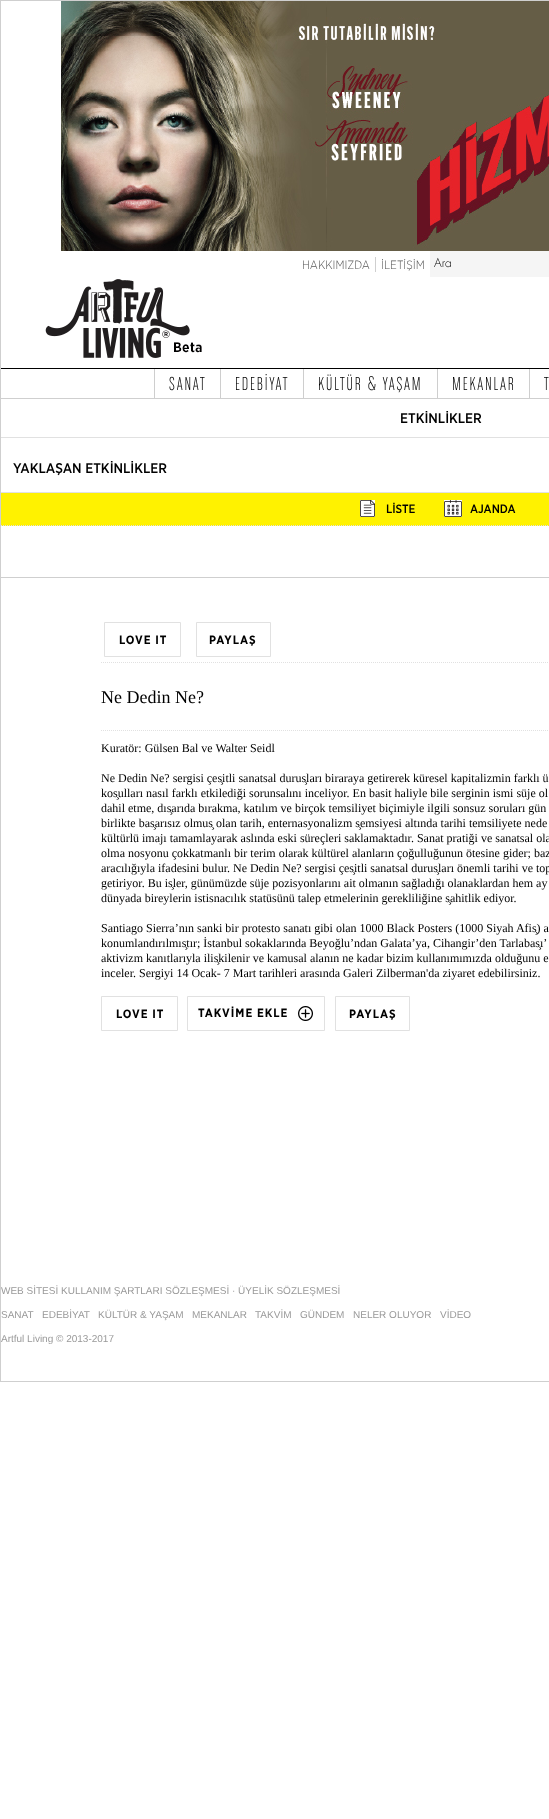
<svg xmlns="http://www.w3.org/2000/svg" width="549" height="1819">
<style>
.a{font:300 12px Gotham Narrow;fill:#595959}
.b{font:300 12px Futura;fill:#000}
.c{font:20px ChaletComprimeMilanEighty;letter-spacing:2px;fill:#000}
.d{font:500 14px Gotham Narrow;fill:#000}
.e{font:500 12px Gotham Narrow;fill:#000}
.f{font:bold 12px Gotham Narrow;letter-spacing:1px;fill:#000}
.g{font:18px Liberation Serif;fill:#000}
.h{font:12px Liberation Serif;fill:#000}
.i{font:10px Liberation Sans;fill:#999}
</style>
<rect width="100%" height="100%" fill="#fff"/>
<path fill="#cfcfcf" d="M0 1381h549v1H0z"/>
<path fill="#cfcfcf" d="M0 0h1v1382H0z"/>
<path fill="#cfcfcf" d="M1 0h548v1H1z"/>
<path fill="#000" d="M1 368h548v1H1z"/>
<image href="1.png" x="61" y="1" width="488" height="250"/>
<path fill="#cfcfcf" d="M375 257h1v15H375z"/>
<path fill="#f5f5f5" d="M430 251h119v26H430z"/>
<image href="2.png" x="45" y="279" width="157" height="79"/>
<path fill="#cfcfcf" d="M1 398h548v1H1z"/>
<path fill="#cecece" d="M220 369h1v29H220z"/>
<path fill="#cecece" d="M154 369h1v29H154z"/>
<path fill="#cecece" d="M303 369h1v29H303z"/>
<path fill="#cecece" d="M437 369h1v29H437z"/>
<path fill="#cecece" d="M529 369h1v29H529z"/>
<path fill="#e1e1e1" d="M1 437h548v1H1z"/>
<path fill="#fff200" d="M1 493h548v33H1z"/>
<path fill="#e1e1e1" d="M1 492h548v1H1z"/>
<path fill="none" stroke="#e1e1e1" stroke-dasharray="1 1" d="M1 525.5h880"/>
<image href="3.png" x="360" y="500" width="15" height="17"/>
<image href="4.png" x="444" y="500" width="18" height="17"/>
<path fill="#cfcfcf" d="M1 577h548v1H1z"/>
<path fill="none" stroke="#e1e1e1" d="M104.5 622.5h76v34H104.5z"/>
<path fill="none" stroke="#e1e1e1" d="M196.5 622.5h74v34H196.5z"/>
<path fill="none" stroke="#e1e1e1" stroke-dasharray="1 1" d="M101 662.5h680"/>
<path fill="none" stroke="#e1e1e1" stroke-dasharray="1 1" d="M101 730.5h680"/>
<path fill="none" stroke="#e1e1e1" d="M101.5 996.5h76v34H101.5z"/>
<image href="5.png" x="298" y="1006" width="15" height="15"/>
<path fill="none" stroke="#e1e1e1" d="M187.5 996.5h137v34H187.5z"/>
<path fill="none" stroke="#e1e1e1" d="M335.5 996.5h74v34H335.5z"/>
<text class="a" x="302" y="269">HAKKIMIZDA</text>
<text class="a" x="381" y="269">İLETİŞİM</text>
<text class="b" x="434" y="267">Ara</text>
<text class="c" x="169" y="390">SANAT</text>
<text class="c" x="235" y="390">EDEBİYAT</text>
<text class="c" x="318" y="390">KÜLTÜR &amp; YAŞAM</text>
<text class="c" x="452" y="390">MEKANLAR</text>
<text class="c" x="544" y="390">T</text>
<text class="d" x="400" y="423">ETKİNLİKLER</text>
<text class="d" x="13" y="473">YAKLAŞAN ETKİNLİKLER</text>
<text class="e" x="386" y="513">LİSTE</text>
<text class="e" x="470" y="513">AJANDA</text>
<text class="f" x="119" y="644">LOVE IT</text>
<text class="f" x="209" y="644">PAYLAŞ</text>
<text class="g" x="101" y="703">Ne Dedin Ne?</text>
<text class="h" x="101" y="752">Kuratör: Gülsen Bal ve Walter Seidl</text>
<text class="h" x="101" y="782">Ne Dedin Ne? sergisi çeşitli sanatsal duruşları biraraya getirerek küresel kapitalizmin farklı ü</text>
<text class="h" x="101" y="797">koşulları nasıl farklı etkilediği sorunsalını inceliyor. En basit haliyle bile serginin ismi süje ol</text>
<text class="h" x="101" y="812">dahil etme, dışarıda bırakma, katılım ve birçok temsiliyet biçimiyle ilgili sonsuz soruları gün</text>
<text class="h" x="101" y="827">birlikte başarısız olmuş olan tarih, enternasyonalizm şemsiyesi altında tarihi temsiliyete nede</text>
<text class="h" x="101" y="842">kültürlü imajı tamamlayarak aslında eski süreçleri saklamaktadır. Sanat pratiği ve sanatsal ola</text>
<text class="h" x="101" y="857">olma nosyonu çokkatmanlı bir terim olarak kültürel alanların çoğulluğunun ötesine gider; baz</text>
<text class="h" x="101" y="872">aracılığıyla ifadesini bulur. Ne Dedin Ne? sergisi çeşitli sanatsal duruşları önemli tarihi ve top</text>
<text class="h" x="101" y="887">getiriyor. Bu işler, günümüzde süje pozisyonlarını ait olmanın sağladığı olanaklardan hem ay</text>
<text class="h" x="101" y="902">dünyada bireylerin istisnacılık statüsünü talep etmelerinin gerekliliğine şahitlik ediyor.</text>
<text class="h" x="101" y="932">Santiago Sierra’nın sanki bir protesto sanatı gibi olan 1000 Black Posters (1000 Siyah Afiş) a</text>
<text class="h" x="101" y="947">konumlandırılmıştır; İstanbul sokaklarında Beyoğlu’ndan Galata’ya, Cihangir’den Tarlabaşı’</text>
<text class="h" x="101" y="962">aktivizm kanıtlarıyla ilişkilenir ve kamusal alanın ne kadar bizim kullanımımızda olduğunu e</text>
<text class="h" x="101" y="977">inceler. Sergiyi 14 Ocak- 7 Mart tarihleri arasında Galeri Zilberman'da ziyaret edebilirsiniz.</text>
<text class="f" x="116" y="1018">LOVE IT</text>
<text class="f" x="198" y="1017">TAKVİME EKLE</text>
<text class="f" x="349" y="1018">PAYLAŞ</text>
<text class="i" x="1" y="1294">WEB SİTESİ KULLANIM ŞARTLARI SÖZLEŞMESİ · ÜYELİK SÖZLEŞMESİ</text>
<text class="i" x="1" y="1318">SANAT</text>
<text class="i" x="42" y="1318">EDEBİYAT</text>
<text class="i" x="98" y="1318">KÜLTÜR &amp; YAŞAM</text>
<text class="i" x="192" y="1318">MEKANLAR</text>
<text class="i" x="255" y="1318">TAKVİM</text>
<text class="i" x="300" y="1318">GÜNDEM</text>
<text class="i" x="353" y="1318">NELER OLUYOR</text>
<text class="i" x="440" y="1318">VİDEO</text>
<text class="i" x="1" y="1342">Artful Living © 2013-2017</text>
</svg>
